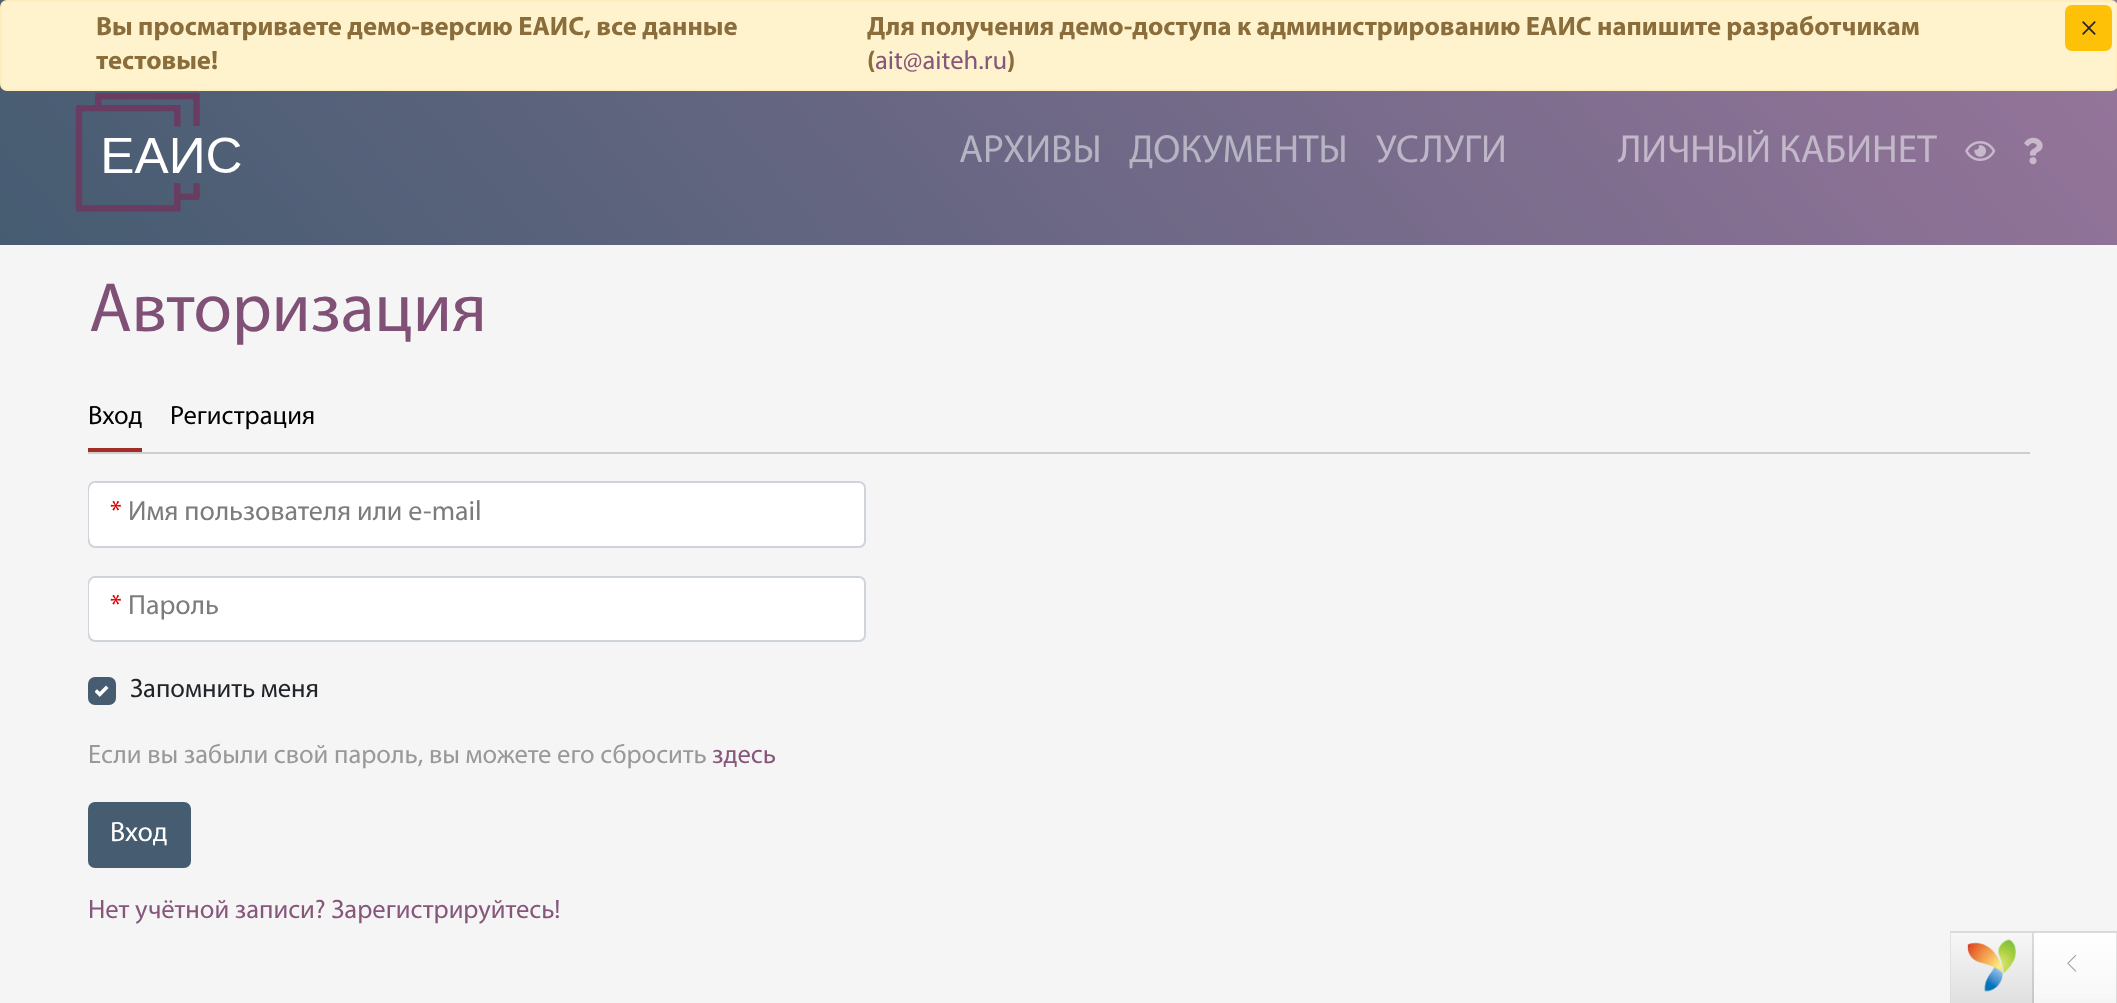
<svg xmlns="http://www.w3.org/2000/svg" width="2117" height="1003">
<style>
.a{font:bold 26.6px Myriad;fill:#8a6d3b}
.b{font:26.6px Myriad;fill:#86577b}
.c{font:26.6px Myriad;fill:#212529}
.d{font:39.25px Myriad;fill:#b6b3c2}
.e{font:39.25px Myriad;fill:#bdb6c6}
.f{font:39.25px Myriad;fill:#c3b8c9}
.g{font:70px Myriad;fill:#815076}
.h{font:26.6px Myriad;fill:#000}
.i{font:28px Myriad;fill:#d00}
.j{font:28px Myriad;fill:#7c7c7c}
.k{font:26.6px Myriad;fill:#999}
.l{font:28px Myriad;fill:#fff}
</style>
<defs>
<linearGradient id="g1" gradientUnits="userSpaceOnUse" x1="377" y1="694" x2="1740" y2="-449"><stop offset="0" stop-color="#455c71"/><stop offset="1" stop-color="#97759b"/></linearGradient>
<linearGradient id="g2" gradientUnits="userSpaceOnUse" x1="2034" y1="933" x2="2034" y2="1003"><stop offset="0" stop-color="#fff"/><stop offset="1" stop-color="#f7f7f7"/></linearGradient>
<linearGradient id="g3" gradientUnits="userSpaceOnUse" x1="1992" y1="933" x2="1992" y2="1003"><stop offset="0" stop-color="#f7f7f7"/><stop offset="1" stop-color="#e0e0e0"/></linearGradient>
</defs>
<rect width="100%" height="100%" fill="#f5f5f5"/>
<path fill="url(#g1)" d="M0 0h2117v245H0z"/>
<rect fill="#fff3cd" stroke="#ffeeba" stroke-width="2" x="1" y="1" width="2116" height="89" rx="6"/>
<rect fill="#ffc107" stroke="#ffc107" stroke-width="2" x="2066" y="6" width="45" height="44" rx="6"/>
<image href="1.png" x="75" y="93" width="166" height="119"/>
<image href="2.png" x="1965" y="141" width="31" height="20"/>
<image href="3.png" x="2024" y="137" width="19" height="28"/>
<path fill="#cecece" d="M88 452h1942v2H88z"/>
<path fill="#a12d29" d="M88 448h54v4H88z"/>
<rect fill="#fff" stroke="#ced4da" stroke-width="2" x="89" y="482" width="776" height="65" rx="6"/>
<rect fill="#fff" x="89" y="483" width="723" height="61" rx="7"/>
<rect fill="#fff" stroke="#ced4da" stroke-width="2" x="89" y="577" width="776" height="64" rx="6"/>
<rect fill="#fff" x="89" y="578" width="723" height="61" rx="7"/>
<rect fill="#455c71" stroke="#455c71" stroke-width="2" x="89" y="678" width="26" height="26" rx="6"/>
<image href="4.png" x="95" y="685" width="14" height="12"/>
<rect fill="#455c71" stroke="#455c71" stroke-width="2" x="89" y="803" width="101" height="64" rx="6"/>
<path fill="url(#g2)" d="M1950 933h167v66H1950z"/>
<path fill="none" stroke="#0000001c" stroke-width="2" d="M1951 932h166v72H1951z"/>
<path fill="url(#g3)" d="M1951 933h83v70H1951z"/>
<path fill="#0000001c" d="M2034 933v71l-2-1v-70z"/>
<image href="5.png" x="1967" y="939" width="49" height="53"/>
<image href="6.png" x="2067" y="955" width="10" height="17"/>
<text class="a" x="96" y="35">Вы просматриваете демо-версию ЕАИС, все данные</text>
<text class="a" x="96" y="69">тестовые!</text>
<text class="a" x="867" y="35">Для получения демо-доступа к администрированию ЕАИС напишите разработчикам</text>
<text class="a" x="867" y="69">(</text>
<text class="b" x="875" y="69">ait@aiteh.ru</text>
<text class="a" x="1007" y="69">)</text>
<text class="c" x="2081" y="35">×</text>
<text class="d" x="959" y="162">АРХИВЫ</text>
<text class="d" x="1129" y="162">ДОКУМЕНТЫ</text>
<text class="e" x="1376" y="162">УСЛУГИ</text>
<text class="f" x="1618" y="162">ЛИЧНЫЙ КАБИНЕТ</text>
<text class="g" x="89" y="331">Авторизация</text>
<text class="h" x="88" y="424">Вход</text>
<text class="h" x="170" y="424">Регистрация</text>
<text class="i" x="110" y="520">*</text>
<text class="j" x="128" y="520">Имя пользователя или e-mail</text>
<text class="i" x="110" y="614">*</text>
<text class="j" x="128" y="614">Пароль</text>
<text class="c" x="130" y="697">Запомнить меня</text>
<text class="k" x="88" y="763">Если вы забыли свой пароль, вы можете его сбросить</text>
<text class="b" x="712" y="763">здесь</text>
<text class="l" x="110" y="841">Вход</text>
<text class="b" x="88" y="918">Нет учётной записи? Зарегистрируйтесь!</text>
</svg>
